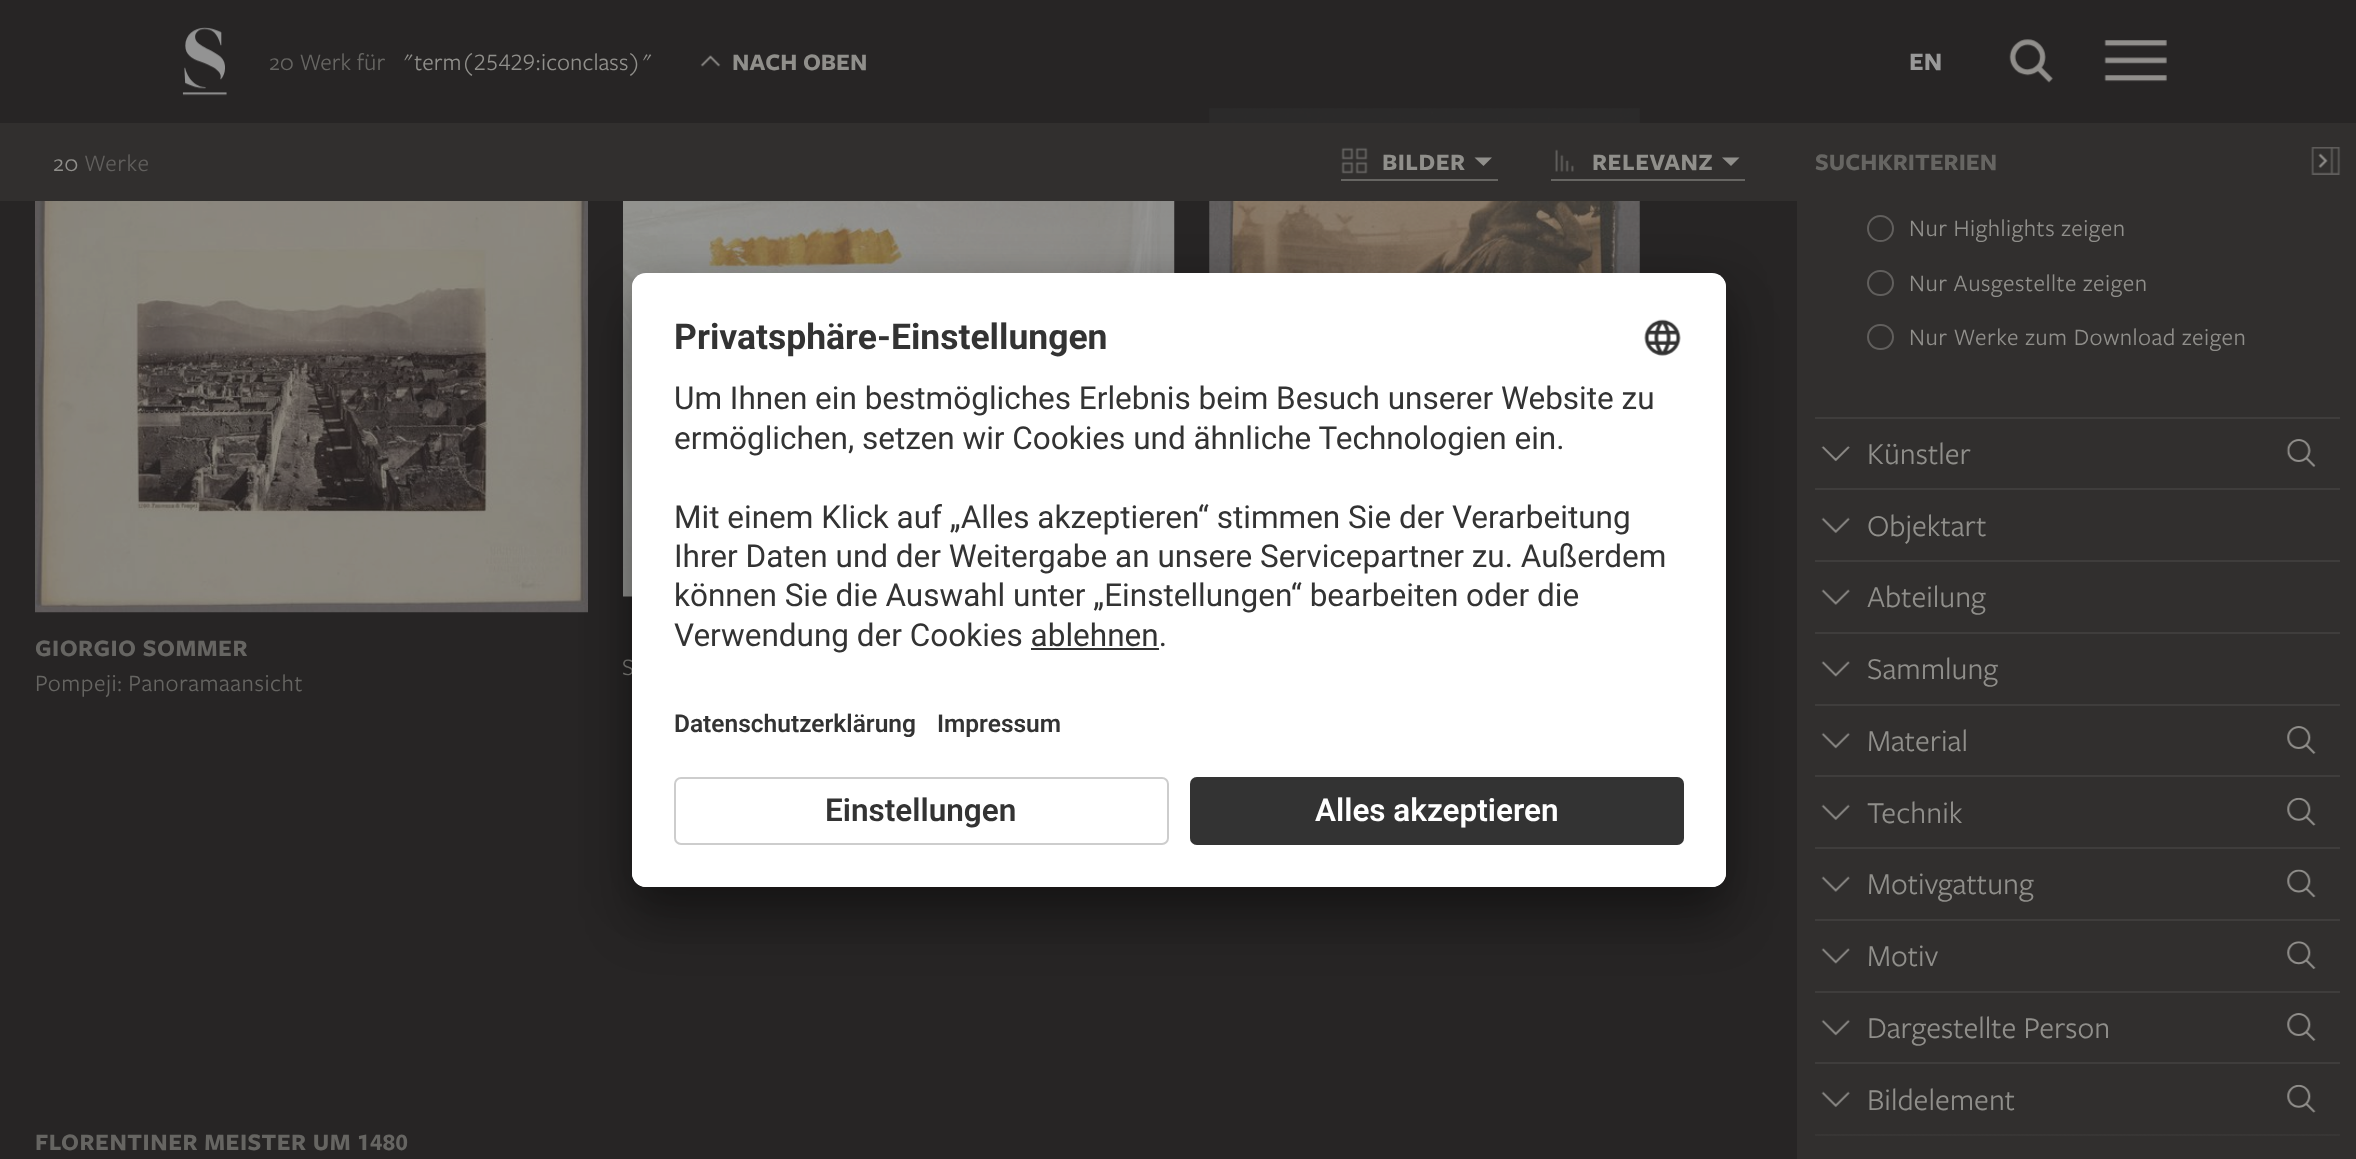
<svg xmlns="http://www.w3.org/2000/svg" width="2356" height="1159">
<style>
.a{font:24.5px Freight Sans;fill:#666562}
.b{font:24.5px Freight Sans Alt;fill:#908f8b}
.c{font:bold 24.5px Freight Sans;fill:#908f8b}
.d{font:bold 26px Freight Sans;fill:#999}
.e{font:24.5px Freight Sans;letter-spacing:0.5px;fill:#908f8b}
.f{font:24.5px Freight Sans;letter-spacing:0.5px;fill:#615f5d}
.g{font:bold 24.5px Freight Sans;letter-spacing:0.5px;fill:#908f8b}
.h{font:bold 24.5px Freight Sans;fill:#666562}
.i{font:bold 24.5px Freight Sans;letter-spacing:0.5px;fill:#666562}
.j{font:24.5px Freight Sans;letter-spacing:0.5px;fill:#666562}
.k{font:bold 24.5px Freight Sans Alt;letter-spacing:0.5px;fill:#666562}
.l{font:31.5px Freight Sans;fill:#908f8b}
.m{font:bold 35.5px Roboto;fill:#333}
.n{font:31.5px Roboto;fill:#333}
.o{font:600 24.5px Roboto;fill:#333}
.p{font:600 31.5px Roboto;fill:#333}
.q{font:600 31.5px Roboto;fill:#fff}
</style>
<defs>
<linearGradient id="g1" gradientUnits="userSpaceOnUse" x1="2077" y1="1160" x2="2077" y2="1108"><stop offset="0" stop-color="#312f2e"/><stop offset="1" stop-color="#312f2e" stop-opacity="0"/></linearGradient>
<clipPath id="clip1"><rect x="632" y="273" width="1094" height="614" rx="14"/></clipPath>
<clipPath id="clip2"><path d="M646 273h1066c7.5 0 14 6.5 14 14v476h-1094v-476c0-7.5 6.5-14 14-14z"/></clipPath>
</defs>
<rect width="100%" height="100%" fill="#272525"/>
<image href="8.png" x="1209" y="108" width="431" height="165"/>
<path fill="#262525e6" d="M1209 108h431v15H1209z"/>
<image href="1.png" x="182" y="27" width="45" height="69"/>
<image href="2.png" x="700" y="55" width="21" height="12"/>
<image href="3.png" x="2009" y="39" width="44" height="44"/>
<image href="4.png" x="2104" y="40" width="63" height="42"/>
<path fill="#312f2e" d="M0 123h2356v78H0z"/>
<path fill="#666562" d="M1341 179h157v2H1341z"/>
<image href="5.png" x="1341" y="147" width="27" height="27"/>
<path fill="#908f8b" d="M1474.5 157.5h17.5l-8.5 8.5z"/>
<path fill="#666562" d="M1551 179h194v2H1551z"/>
<image href="6.png" x="1555" y="149" width="19" height="23"/>
<path fill="#908f8b" d="M1722 157.5h17.5l-8.5 8.5z"/>
<image href="7.png" x="2311" y="147" width="30" height="28"/>
<image href="9.png" x="35" y="201" width="553" height="412"/>
<image href="10.png" x="623" y="201" width="552" height="396"/>
<path fill="#312f2e" d="M1797 201h559v958H1797z"/>
<circle fill="none" stroke="#615f5d" stroke-width="2" cx="1880.5" cy="228.5" r="12.5"/>
<rect fill="none" stroke="#615f5d" stroke-width="2" x="1868" y="271" width="25" height="24" rx="12"/>
<rect fill="none" stroke="#615f5d" stroke-width="2" x="1868" y="325" width="25" height="24" rx="12"/>
<path fill="#3f3d3c" d="M1815 417h525v2H1815z"/>
<image href="11.png" x="1821" y="446" width="29" height="16"/>
<image href="12.png" x="2286" y="439" width="30" height="28"/>
<path fill="#3f3d3c" d="M1815 488h525v2H1815z"/>
<image href="13.png" x="1821" y="517" width="29" height="17"/>
<path fill="#3f3d3c" d="M1815 560h525v2H1815z"/>
<image href="14.png" x="1821" y="589" width="29" height="16"/>
<path fill="#3f3d3c" d="M1815 632h525v2H1815z"/>
<image href="15.png" x="1821" y="661" width="29" height="16"/>
<path fill="#3f3d3c" d="M1815 704h525v2H1815z"/>
<image href="16.png" x="1821" y="732" width="29" height="17"/>
<image href="17.png" x="2287" y="726" width="29" height="28"/>
<path fill="#3f3d3c" d="M1815 775h525v2H1815z"/>
<image href="13.png" x="1821" y="804" width="29" height="17"/>
<image href="18.png" x="2287" y="797" width="29" height="29"/>
<path fill="#3f3d3c" d="M1815 847h525v2H1815z"/>
<image href="14.png" x="1821" y="876" width="29" height="16"/>
<image href="19.png" x="2287" y="869" width="29" height="29"/>
<path fill="#3f3d3c" d="M1815 919h525v2H1815z"/>
<image href="15.png" x="1821" y="948" width="29" height="16"/>
<image href="20.png" x="2287" y="941" width="29" height="28"/>
<path fill="#3f3d3c" d="M1815 991h525v2H1815z"/>
<image href="16.png" x="1821" y="1019" width="29" height="17"/>
<image href="17.png" x="2287" y="1013" width="29" height="28"/>
<path fill="#3f3d3c" d="M1815 1062h525v2H1815z"/>
<image href="13.png" x="1821" y="1091" width="29" height="17"/>
<image href="18.png" x="2287" y="1084" width="29" height="29"/>
<path fill="#3f3d3c" d="M1815 1134h525v2H1815z"/>
<rect fill="#0000004d" filter="blur(24.5px)" x="632" y="308" width="1094" height="614" rx="14"/>
<rect fill="#00000038" filter="blur(23px)" x="632" y="282" width="1094" height="614" rx="14"/>
<text class="a" x="269" y="70">20 Werk für</text>
<text class="b" x="402" y="70">"term(25429:iconclass)"</text>
<text class="c" x="732" y="70">NACH OBEN</text>
<text class="d" x="1909" y="70">EN</text>
<text class="e" x="53" y="171">20</text>
<text class="f" x="84" y="171">Werke</text>
<text class="g" x="1382" y="170">BILDER</text>
<text class="g" x="1592" y="170">RELEVANZ</text>
<text class="h" x="1815" y="170">SUCHKRITERIEN</text>
<text class="i" x="35" y="656">GIORGIO SOMMER</text>
<text class="j" x="35" y="691">Pompeji: Panoramaansicht</text>
<text class="j" x="622" y="675">S</text>
<text class="k" x="35" y="1150">FLORENTINER MEISTER UM 1480</text>
<text class="e" x="1909" y="236">Nur Highlights zeigen</text>
<text class="e" x="1909" y="291">Nur Ausgestellte zeigen</text>
<text class="e" x="1909" y="345">Nur Werke zum Download zeigen</text>
<text class="l" x="1867" y="464">Künstler</text>
<text class="l" x="1867" y="536">Objektart</text>
<text class="l" x="1867" y="607">Abteilung</text>
<text class="l" x="1867" y="679">Sammlung</text>
<text class="l" x="1867" y="751">Material</text>
<text class="l" x="1867" y="823">Technik</text>
<text class="l" x="1867" y="894">Motivgattung</text>
<text class="l" x="1867" y="966">Motiv</text>
<text class="l" x="1867" y="1038">Dargestellte Person</text>
<text class="l" x="1867" y="1110">Bildelement</text>
<path fill="url(#g1)" d="M1815 1109h525v27H1815z"/>
<rect fill="#fff" x="632" y="273" width="1094" height="614" rx="14"/>
<g clip-path="url(#clip1)">
<g clip-path="url(#clip2)">
<path fill="#fff" d="M632 275h1094v488H632z"/>
</g>
</g>
<text class="m" x="674" y="349">Privatsphäre-Einstellungen</text>
<image href="21.png" x="1644" y="319" width="37" height="37"/>
<text class="n" x="674" y="409">Um Ihnen ein bestmögliches Erlebnis beim Besuch unserer Website zu</text>
<text class="n" x="674" y="449">ermöglichen, setzen wir Cookies und ähnliche Technologien ein.</text>
<text class="n" x="674" y="528">Mit einem Klick auf „Alles akzeptieren“ stimmen Sie der Verarbeitung</text>
<text class="n" x="674" y="567">Ihrer Daten und der Weitergabe an unsere Servicepartner zu. Außerdem</text>
<text class="n" x="674" y="606">können Sie die Auswahl unter „Einstellungen“ bearbeiten oder die</text>
<text class="n" x="674" y="646">Verwendung der Cookies ablehnen.</text>
<path fill="#333" d="M1031 648h128v2H1031z"/>
<text class="o" x="674" y="732">Datenschutzerklärung</text>
<text class="o" x="937" y="732">Impressum</text>
<path fill="#fff" d="M632 763h1094v110c0 7.5-6.5 14-14 14h-1066c-7.5 0-14-6.5-14-14z"/>
<rect fill="none" stroke="#cdcdcd" stroke-width="2" x="675" y="778" width="493" height="66" rx="6"/>
<text class="p" x="825" y="821">Einstellungen</text>
<rect fill="#333" x="1190" y="777" width="494" height="68" rx="7"/>
<rect fill="none" stroke="#35353540" stroke-width="2" x="1191" y="778" width="492" height="66" rx="6"/>
<text class="q" x="1315" y="821">Alles akzeptieren</text>
</svg>
